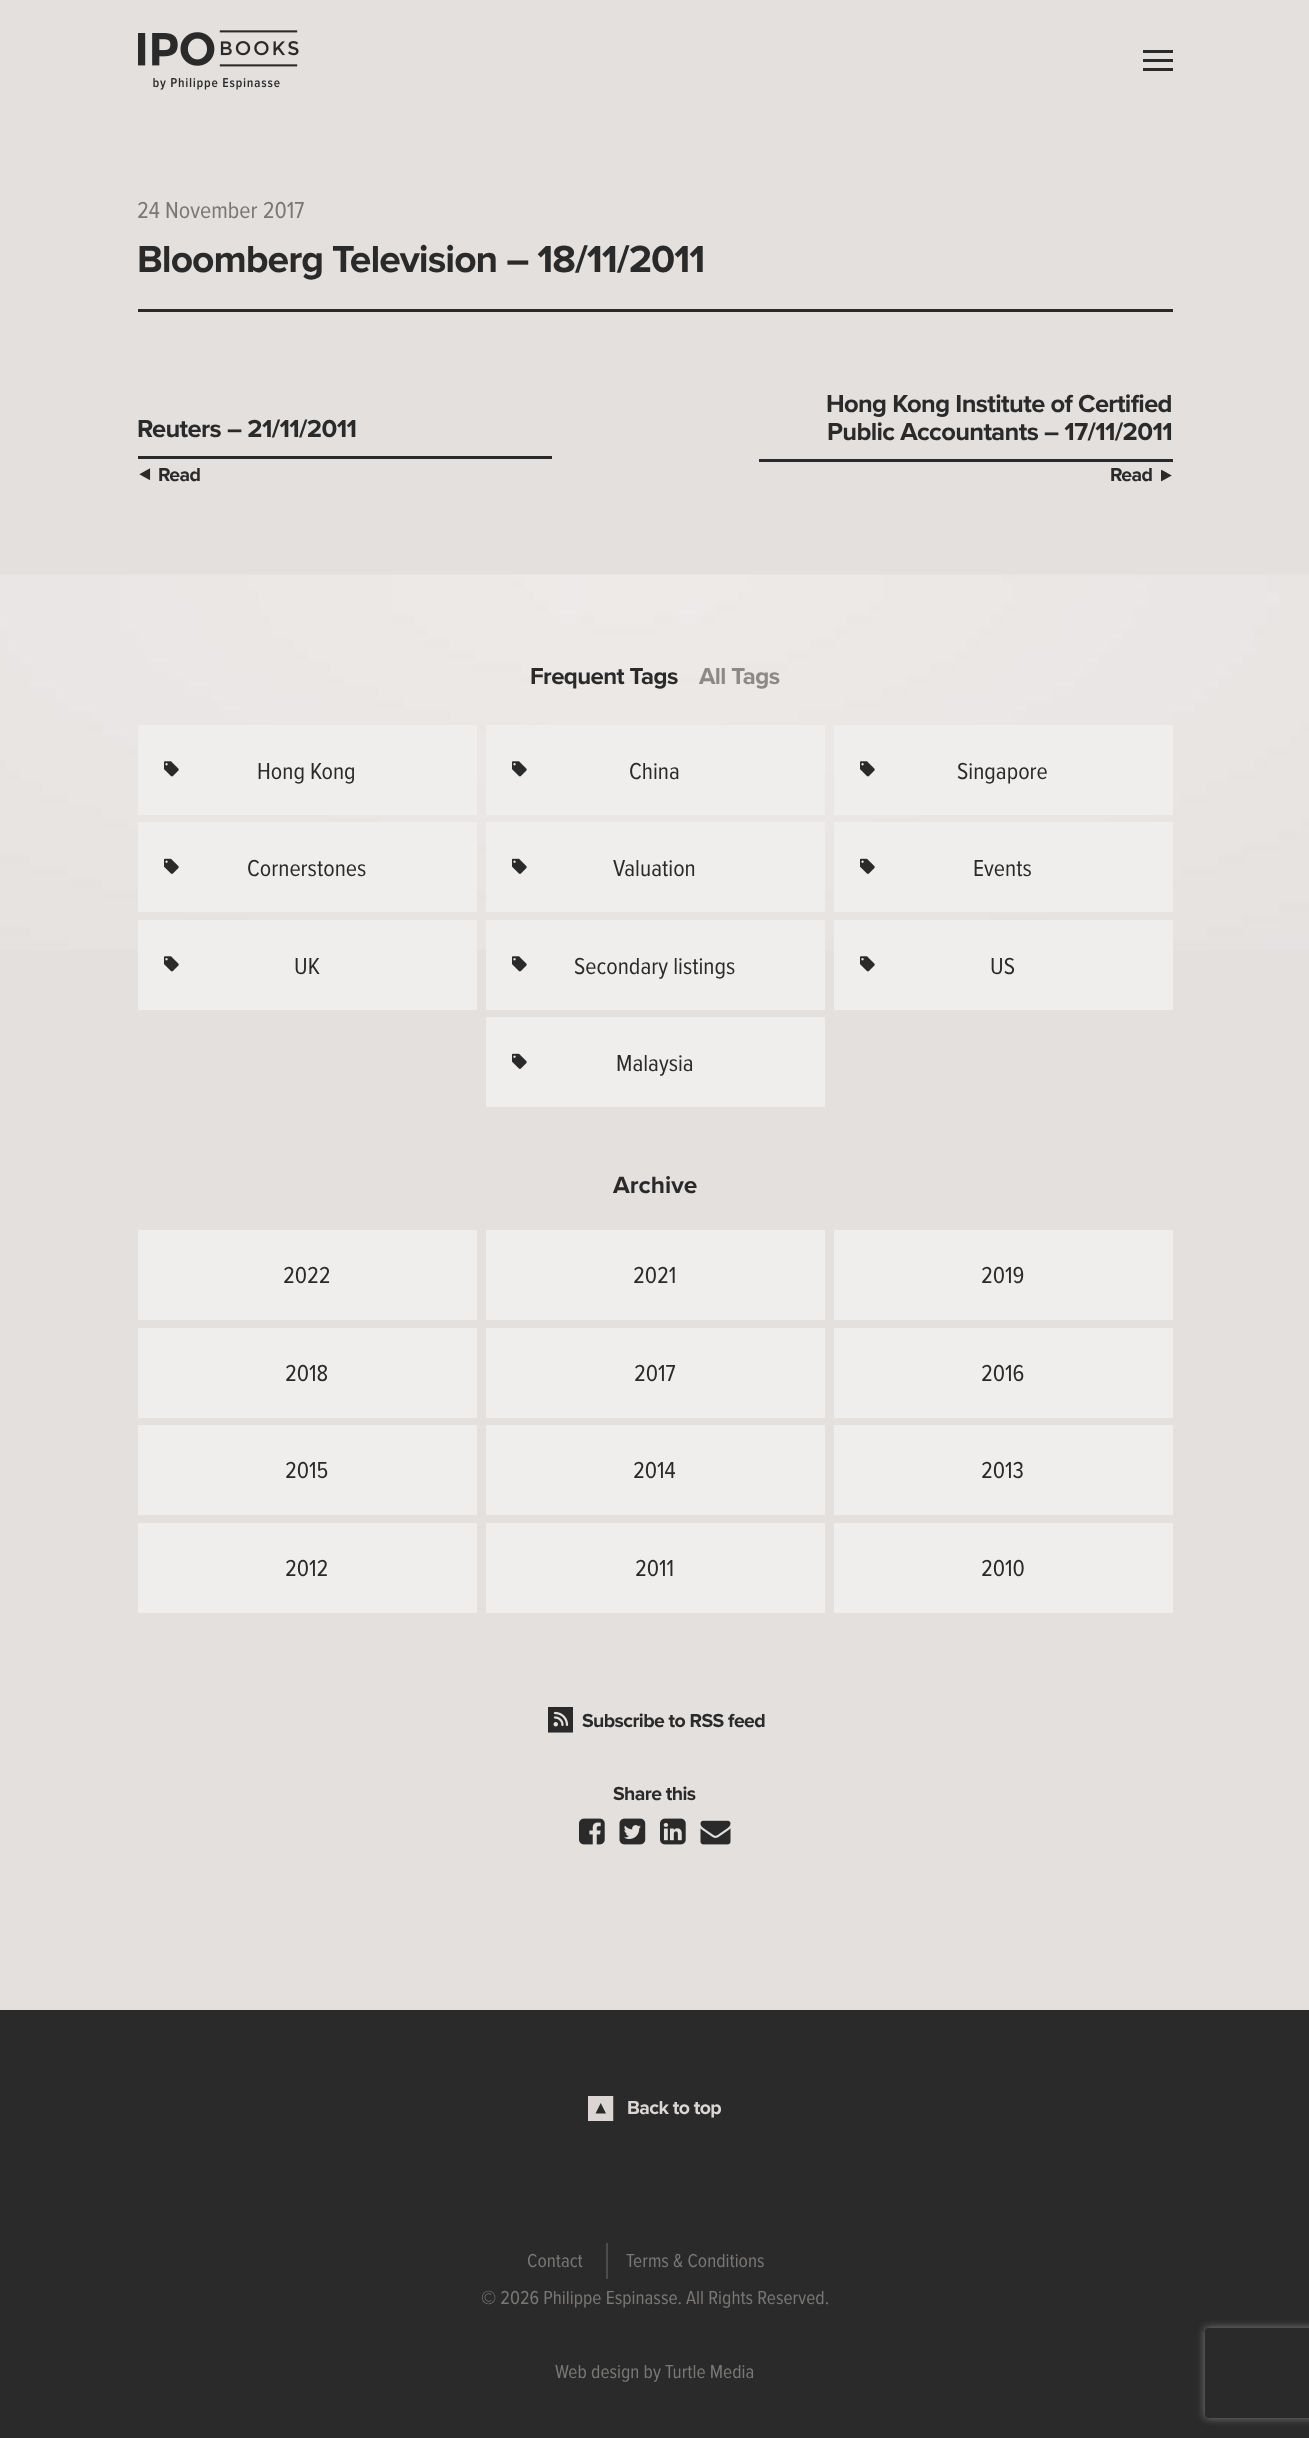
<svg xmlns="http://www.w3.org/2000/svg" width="1309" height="2438">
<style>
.a{font:24px Proxima Nova;fill:#7a7876}
.b{font:bold 39px Proxima Nova;letter-spacing:-1px;fill:#2a2a2a}
.c{font:bold 25.5px Proxima Nova;letter-spacing:-0.65px;fill:#2a2a2a}
.d{font:bold 19.5px Proxima Nova;letter-spacing:-0.6px;fill:#2a2a2a}
.e{font:bold 24px Proxima Nova;letter-spacing:-0.6px;fill:#2a2a2a}
.f{font:bold 24px Proxima Nova;letter-spacing:-0.6px;fill:#8c8987}
.g{font:24px Proxima Nova;fill:#2a2a2a}
.h{font:bold 24.5px Proxima Nova;fill:#2a2a2a}
.i{font:bold 19.5px Proxima Nova;letter-spacing:-0.6px;fill:#dbd6d3}
.j{font:19.5px Proxima Nova;fill:#7a7876}
</style>
<defs>
<clipPath id="clip1"><path d="M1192 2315h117v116h-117zm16 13h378c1.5 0 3 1.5 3 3v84c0 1.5-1.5 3-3 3h-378c-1.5 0-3-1.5-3-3v-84c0-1.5 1.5-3 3-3z" clip-rule="evenodd"/></clipPath>
</defs>
<rect width="100%" height="100%" fill="#e3e0de"/>
<image href="1.png" x="138" y="30" width="161" height="60"/>
<path fill="#2a2a2a" d="M1143 50h30v3H1143z"/>
<path fill="#2a2a2a" d="M1143 59h30v3H1143z"/>
<path fill="#2a2a2a" d="M1143 68h30v3H1143z"/>
<path fill="#2a2a2a" d="M138 309h1035v3H138z"/>
<path fill="#2a2a2a" d="M138 456h414v3H138z"/>
<image href="2.png" x="139" y="468" width="12" height="13"/>
<path fill="#2a2a2a" d="M759 459h414v3H759z"/>
<image href="3.png" x="1161" y="470" width="11" height="12"/>
<image href="4.png" x="0" y="574" width="1309" height="376"/>
<path fill="#f0eeed" d="M138 725h339v90H138z"/>
<image href="5.png" x="164" y="761" width="15" height="16"/>
<path fill="#f0eeed" d="M486 725h339v90H486z"/>
<image href="5.png" x="512" y="761" width="15" height="16"/>
<path fill="#f0eeed" d="M834 725h339v90H834z"/>
<image href="5.png" x="860" y="761" width="15" height="16"/>
<path fill="#f0eeed" d="M138 822h339v90H138z"/>
<image href="6.png" x="164" y="858" width="15" height="16"/>
<path fill="#f0eeed" d="M486 822h339v90H486z"/>
<image href="6.png" x="512" y="858" width="15" height="16"/>
<path fill="#f0eeed" d="M834 822h339v90H834z"/>
<image href="6.png" x="860" y="858" width="15" height="16"/>
<path fill="#f0eeed" d="M138 920h339v90H138z"/>
<image href="5.png" x="164" y="956" width="15" height="16"/>
<path fill="#f0eeed" d="M486 920h339v90H486z"/>
<image href="5.png" x="512" y="956" width="15" height="16"/>
<path fill="#f0eeed" d="M834 920h339v90H834z"/>
<image href="5.png" x="860" y="956" width="15" height="16"/>
<path fill="#f0eeed" d="M486 1017h339v90H486z"/>
<image href="6.png" x="512" y="1053" width="15" height="16"/>
<path fill="#f0eeed" d="M138 1230h339v90H138z"/>
<path fill="#f0eeed" d="M486 1230h339v90H486z"/>
<path fill="#f0eeed" d="M834 1230h339v90H834z"/>
<path fill="#f0eeed" d="M138 1328h339v90H138z"/>
<path fill="#f0eeed" d="M486 1328h339v90H486z"/>
<path fill="#f0eeed" d="M834 1328h339v90H834z"/>
<path fill="#f0eeed" d="M138 1425h339v90H138z"/>
<path fill="#f0eeed" d="M486 1425h339v90H486z"/>
<path fill="#f0eeed" d="M834 1425h339v90H834z"/>
<path fill="#f0eeed" d="M138 1523h339v90H138z"/>
<path fill="#f0eeed" d="M486 1523h339v90H486z"/>
<path fill="#f0eeed" d="M834 1523h339v90H834z"/>
<image href="7.png" x="548" y="1707" width="25" height="26"/>
<image href="8.png" x="579" y="1818" width="26" height="27"/>
<image href="9.png" x="619" y="1818" width="27" height="27"/>
<image href="10.png" x="660" y="1818" width="26" height="27"/>
<image href="11.png" x="700" y="1820" width="31" height="25"/>
<path fill="#2a2a2a" d="M0 2010h1309v428H0z"/>
<image href="12.png" x="588" y="2096" width="26" height="25"/>
<path fill="#4d4c4b" d="M606 2243h2v36H606z"/>
<g clip-path="url(#clip1)">
<rect fill="#808080" filter="blur(4px)" x="1205" y="2328" width="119" height="90" rx="3"/>
</g>
<text class="a" x="137" y="218">24 November 2017</text>
<text class="b" x="137" y="272">Bloomberg Television – 18/11/2011</text>
<text class="c" x="137" y="437">Reuters – 21/11/2011</text>
<text class="d" x="158" y="481">Read</text>
<text class="c" x="826" y="412">Hong Kong Institute of Certified</text>
<text class="c" x="827" y="440">Public Accountants – 17/11/2011</text>
<text class="d" x="1110" y="481">Read</text>
<text class="e" x="530" y="684">Frequent Tags</text>
<text class="f" x="699" y="684">All Tags</text>
<text class="g" x="257" y="779">Hong Kong</text>
<text class="g" x="629" y="779">China</text>
<text class="g" x="957" y="779">Singapore</text>
<text class="g" x="247" y="876">Cornerstones</text>
<text class="g" x="613" y="876">Valuation</text>
<text class="g" x="973" y="876">Events</text>
<text class="g" x="294" y="974">UK</text>
<text class="g" x="574" y="974">Secondary listings</text>
<text class="g" x="990" y="974">US</text>
<text class="g" x="616" y="1071">Malaysia</text>
<text class="h" x="613" y="1193">Archive</text>
<text class="g" x="283" y="1283">2022</text>
<text class="g" x="633" y="1283">2021</text>
<text class="g" x="981" y="1283">2019</text>
<text class="g" x="285" y="1381">2018</text>
<text class="g" x="634" y="1381">2017</text>
<text class="g" x="981" y="1381">2016</text>
<text class="g" x="285" y="1478">2015</text>
<text class="g" x="633" y="1478">2014</text>
<text class="g" x="981" y="1478">2013</text>
<text class="g" x="285" y="1576">2012</text>
<text class="g" x="635" y="1576">2011</text>
<text class="g" x="981" y="1576">2010</text>
<text class="d" x="582" y="1727">Subscribe to RSS feed</text>
<text class="d" x="613" y="1800">Share this</text>
<text class="i" x="627" y="2114">Back to top</text>
<text class="j" x="527" y="2267">Contact</text>
<text class="j" x="626" y="2267">Terms &amp; Conditions</text>
<text class="j" x="481" y="2304">© 2026 Philippe Espinasse. All Rights Reserved.</text>
<text class="j" x="555" y="2378">Web design by Turtle Media</text>
</svg>
